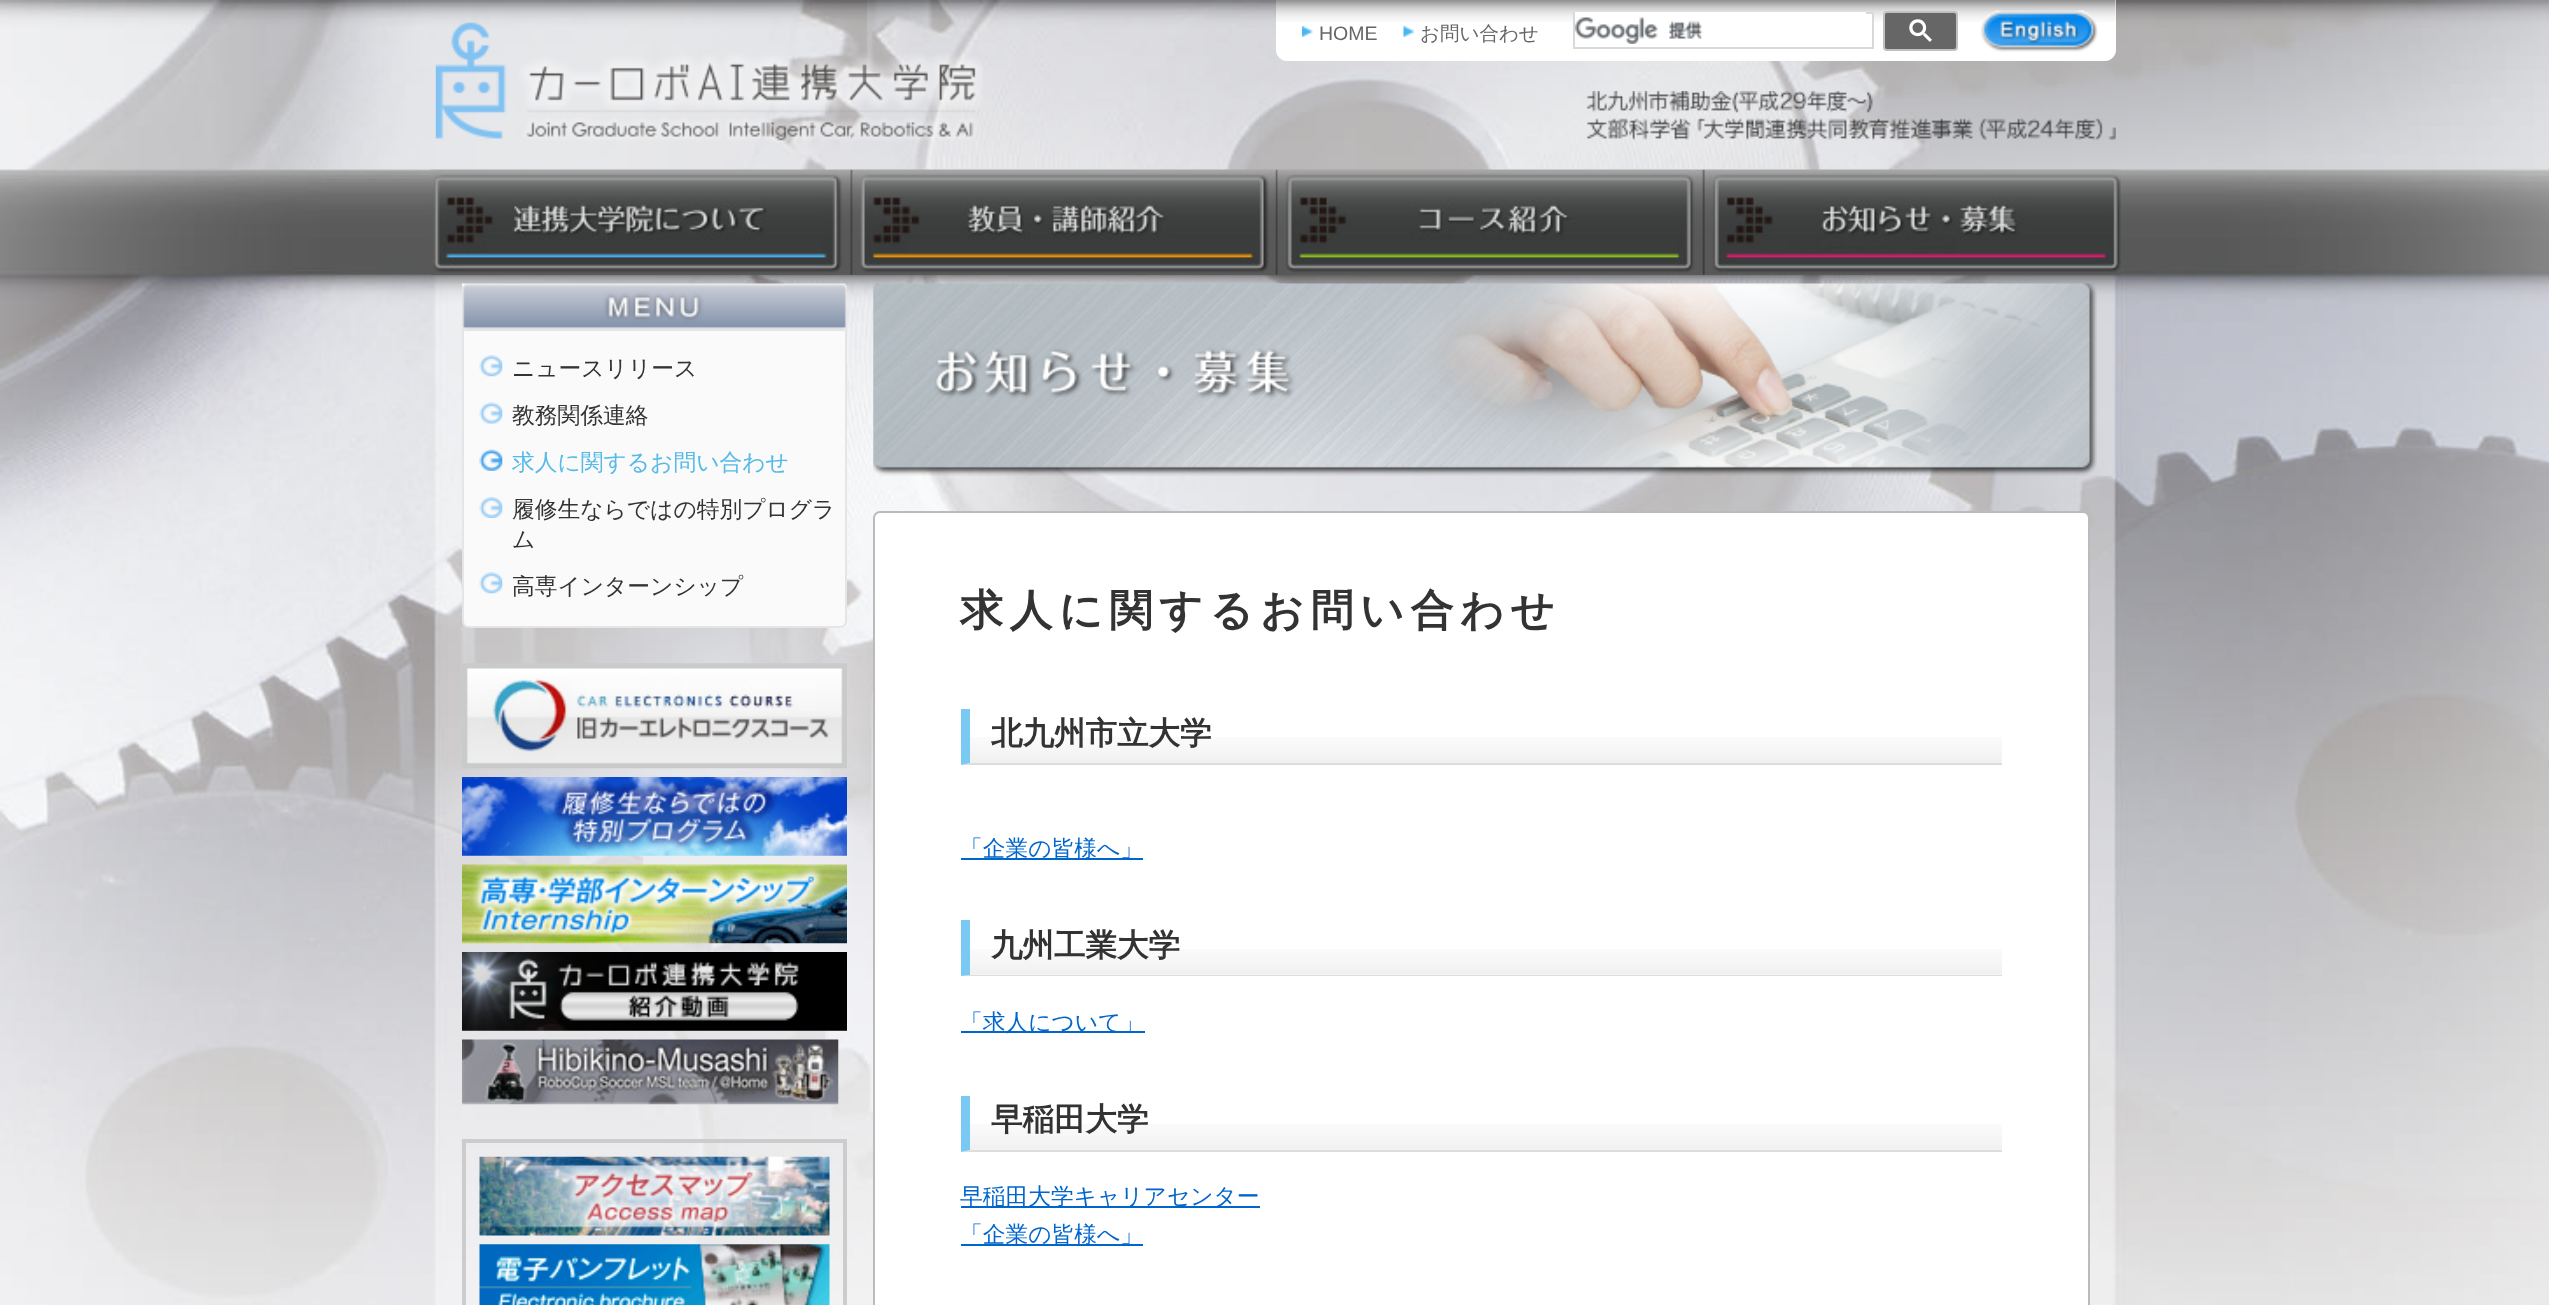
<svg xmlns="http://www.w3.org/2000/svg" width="2549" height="1305">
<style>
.a{font:19.5px Liberation Sans;fill:#666}
.b{font:500 19.5px WenQuanYi Zen Hei;fill:#666}
.c{font:500 22.75px WenQuanYi Zen Hei;fill:#333}
.d{font:500 22.75px WenQuanYi Zen Hei;fill:#55bae7}
.e{font:bold 43px WenQuanYi Zen Hei;letter-spacing:6.5px;fill:#333}
.f{font:bold 31.5px WenQuanYi Zen Hei;fill:#333}
.g{font:500 22.75px WenQuanYi Zen Hei;fill:#06c}
</style>
<rect width="100%" height="100%" fill="#fff"/>
<image href="1.png" x="0" y="0" width="2549" height="1305"/>
<image href="2.png" x="435" y="22" width="548" height="121"/>
<path fill="#fff" d="M1276 0h840v50c0 6-5 11-11 11h-818c-6 0-11-5-11-11z"/>
<image href="3.png" x="1276" y="0" width="840" height="22"/>
<image href="4.png" x="1302" y="26" width="11" height="11"/>
<image href="5.png" x="1403" y="26" width="11" height="11"/>
<path fill="#fff" d="M1866 14h6v8H1866z"/>
<path fill="none" stroke="#d9d9d9" stroke-width="2" d="M1574 13h299v35H1574z"/>
<path fill="#fff" d="M1575 12h291v10H1575z"/>
<image href="6.png" x="1575" y="17" width="128" height="27"/>
<rect fill="#666" stroke="#c0c0c0" stroke-width="2" x="1884" y="12" width="73" height="38" rx="3"/>
<image href="7.png" x="1909" y="19" width="23" height="23"/>
<image href="8.png" x="1980" y="10" width="118" height="42"/>
<image href="9.png" x="1586" y="91" width="530" height="49"/>
<image href="10.png" x="430" y="169" width="421" height="106"/>
<image href="11.png" x="850" y="169" width="424" height="106"/>
<image href="12.png" x="1275" y="169" width="426" height="106"/>
<image href="13.png" x="1701" y="169" width="420" height="106"/>
<image href="14.png" x="462" y="283" width="385" height="46"/>
<path fill="#fafafa" stroke="#e5e5e5" stroke-width="2" d="M463 330h383v291c0 3.5-2.5 6-6 6h-371c-3.5 0-6-2.5-6-6z"/>
<image href="15.png" x="479" y="355" width="24" height="22"/>
<image href="16.png" x="479" y="402" width="24" height="22"/>
<image href="17.png" x="479" y="449" width="24" height="22"/>
<image href="18.png" x="479" y="497" width="24" height="21"/>
<image href="15.png" x="479" y="572" width="24" height="22"/>
<image href="19.png" x="462" y="663" width="385" height="106"/>
<image href="20.png" x="462" y="777" width="385" height="79"/>
<image href="21.png" x="462" y="864" width="385" height="80"/>
<image href="22.png" x="462" y="952" width="385" height="79"/>
<image href="23.png" x="462" y="1039" width="377" height="66"/>
<path fill="none" stroke="#ccc" stroke-width="4" d="M464 1141h381v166H464z"/>
<image href="24.png" x="479" y="1156" width="351" height="80"/>
<image href="25.png" x="479" y="1244" width="351" height="61"/>
<image href="26.png" x="873" y="283" width="1224" height="193"/>
<rect fill="#fff" stroke="#bbb" stroke-width="2" x="874" y="512" width="1215" height="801" rx="6"/>
<image href="27.png" x="960" y="737" width="1042" height="26"/>
<path fill="#ddd" d="M2002 765h-1041l9-2h1032z"/>
<path fill="#79c9f3" d="M961 765v-56h9v54z"/>
<path fill="#06c" d="M961 858h182v2H961z"/>
<image href="28.png" x="960" y="949" width="1042" height="26"/>
<path fill="#ddd" d="M2002 976h-1041l9-1h1032z"/>
<path fill="#79c9f3" d="M961 976v-56h9v55z"/>
<path fill="#06c" d="M961 1031h184v2H961z"/>
<image href="28.png" x="960" y="1124" width="1042" height="26"/>
<path fill="#ddd" d="M2002 1152h-1041l9-2h1032z"/>
<path fill="#79c9f3" d="M961 1152v-56h9v54z"/>
<path fill="#06c" d="M961 1206h299v2H961z"/>
<path fill="#06c" d="M961 1244h182v2H961z"/>
<text class="a" x="1319" y="40">HOME</text>
<text class="b" x="1420" y="40">お問い合わせ</text>
<text class="c" x="512" y="376">ニュースリリース</text>
<text class="c" x="512" y="423">教務関係連絡</text>
<text class="d" x="512" y="470">求人に関するお問い合わせ</text>
<text class="c" x="512" y="517">履修生ならではの特別プログラ</text>
<text class="c" x="512" y="547">ム</text>
<text class="c" x="512" y="594">高専インターンシップ</text>
<text class="e" x="960" y="625">求人に関するお問い合わせ</text>
<text class="f" x="991" y="744">北九州市立大学</text>
<text class="g" x="960" y="856">「企業の皆様へ」</text>
<text class="f" x="991" y="956">九州工業大学</text>
<text class="g" x="960" y="1030">「求人について」</text>
<text class="f" x="991" y="1130">早稲田大学</text>
<text class="g" x="960" y="1204">早稲田大学キャリアセンター</text>
<text class="g" x="960" y="1242">「企業の皆様へ」</text>
</svg>
